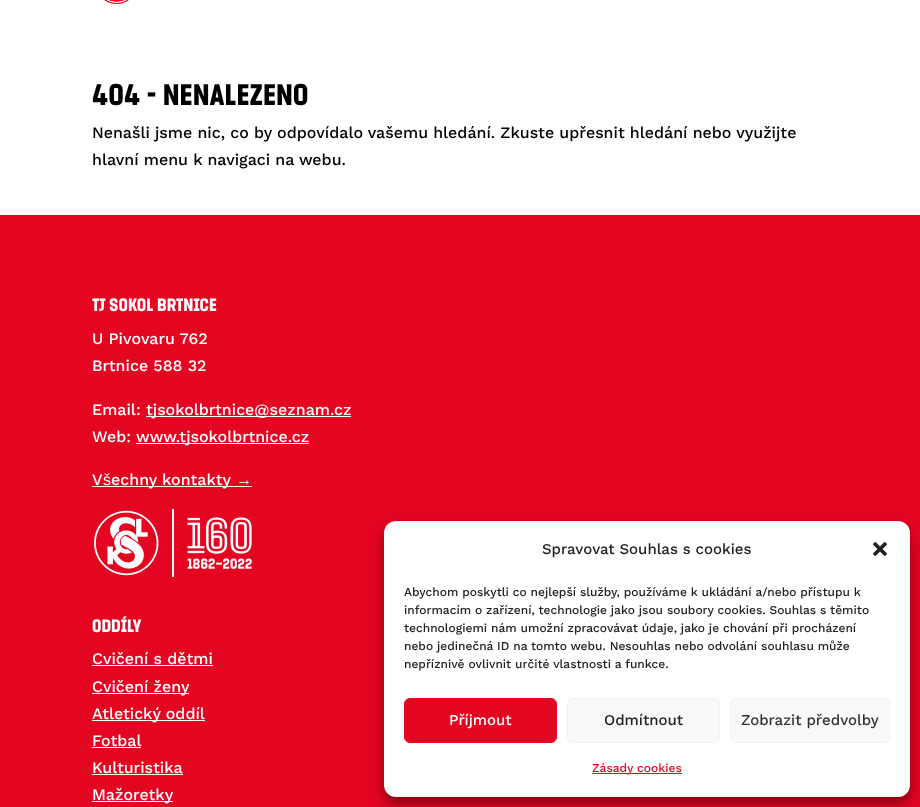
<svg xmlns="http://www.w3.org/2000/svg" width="920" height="807">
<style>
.a{font:30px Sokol;fill:#000}
.b{font:500 16px Work Sans;fill:#000}
.c{font:18px Sokol;fill:#fff}
.d{font:500 16px Work Sans;fill:#fff}
.e{font:16px Liberation Sans;fill:#fff}
.f{font:500 15px Work Sans;fill:#222}
.g{font:500 12px Work Sans;fill:#222}
.h{font:500 15px Work Sans;fill:#fff}
.i{font:500 15px Work Sans;fill:#333}
.j{font:500 12px Work Sans;fill:#e40521}
</style>
<rect width="100%" height="100%" fill="#fff"/>
<image href="1.png" x="104" y="0" width="25" height="4"/>
<path fill="#e40521" d="M0 215h920v592H0z"/>
<path fill="#fff" d="M146 416h205v1H146z"/>
<path fill="#fff" d="M136 443h173v1H136z"/>
<path fill="#fff" d="M92 486h160v1H92z"/>
<image href="2.png" x="94" y="509" width="158" height="68"/>
<path fill="#fff" d="M92 665h121v1H92z"/>
<path fill="#fff" d="M92 693h97v1H92z"/>
<path fill="#fff" d="M92 720h113v1H92z"/>
<path fill="#fff" d="M92 747h49v1H92z"/>
<path fill="#fff" d="M92 774h91v1H92z"/>
<path fill="#fff" d="M92 801h81v1H92z"/>
<rect fill="#0000003b" filter="blur(3px)" x="384" y="527" width="526" height="276" rx="12"/>
<rect fill="#00000030" filter="blur(10px)" x="384" y="531" width="526" height="276" rx="12"/>
<rect fill="#fff" x="384" y="521" width="526" height="276" rx="12"/>
<image href="3.png" x="873" y="542" width="14" height="14"/>
<rect fill="#e40521" stroke="#e40521" x="404.5" y="698.5" width="152" height="44" rx="5.5"/>
<rect fill="#f9f9f9" stroke="#f2f2f2" x="567.5" y="698.5" width="152" height="44" rx="5.5"/>
<rect fill="#f9f9f9" stroke="#f2f2f2" x="730.5" y="698.5" width="159" height="44" rx="5.5"/>
<path fill="#e40521" d="M592 773h90v1H592z"/>
<text class="a" x="92" y="105">404 - Nenalezeno</text>
<text class="b" x="92" y="138">Nenašli jsme nic, co by odpovídalo vašemu hledání. Zkuste upřesnit hledání nebo využijte</text>
<text class="b" x="92" y="165">hlavní menu k navigaci na webu.</text>
<text class="c" x="92" y="311">TJ Sokol Brtnice</text>
<text class="d" x="92" y="344">U Pivovaru 762</text>
<text class="d" x="92" y="371">Brtnice 588 32</text>
<text class="d" x="92" y="415">Email:</text>
<text class="d" x="146" y="415">tjsokolbrtnice@seznam.cz</text>
<text class="d" x="92" y="442">Web:</text>
<text class="d" x="136" y="442">www.tjsokolbrtnice.cz</text>
<text class="d" x="92" y="485">V</text>
<text class="e" x="103" y="485">š</text>
<text class="d" x="111" y="485">echny kontakty</text>
<text class="e" x="236" y="485">→</text>
<text class="c" x="92" y="632">Oddíly</text>
<text class="d" x="92" y="664">Cvičení s dětmi</text>
<text class="d" x="92" y="692">Cvičení ženy</text>
<text class="d" x="92" y="719">Atletický oddíl</text>
<text class="d" x="92" y="746">Fotbal</text>
<text class="d" x="92" y="773">Kulturistika</text>
<text class="d" x="92" y="800">Mažoretky</text>
<text class="f" x="542" y="554">Spravovat Souhlas s cookies</text>
<text class="g" x="404" y="596">Abychom poskytli co nejlepší služby, používáme k ukládání a/nebo přístupu k</text>
<text class="g" x="404" y="614">informacím o zařízení, technologie jako jsou soubory cookies. Souhlas s těmito</text>
<text class="g" x="404" y="632">technologiemi nám umožní zpracovávat údaje, jako je chování při procházení</text>
<text class="g" x="404" y="650">nebo jedinečná ID na tomto webu. Nesouhlas nebo odvolání souhlasu může</text>
<text class="g" x="404" y="668">nepříznivě ovlivnit určité vlastnosti a funkce.</text>
<text class="h" x="449" y="725">Příjmout</text>
<text class="f" x="604" y="725">Odmítnout</text>
<text class="i" x="741" y="725">Zobrazit předvolby</text>
<text class="j" x="592" y="772">Zásady cookies</text>
</svg>
